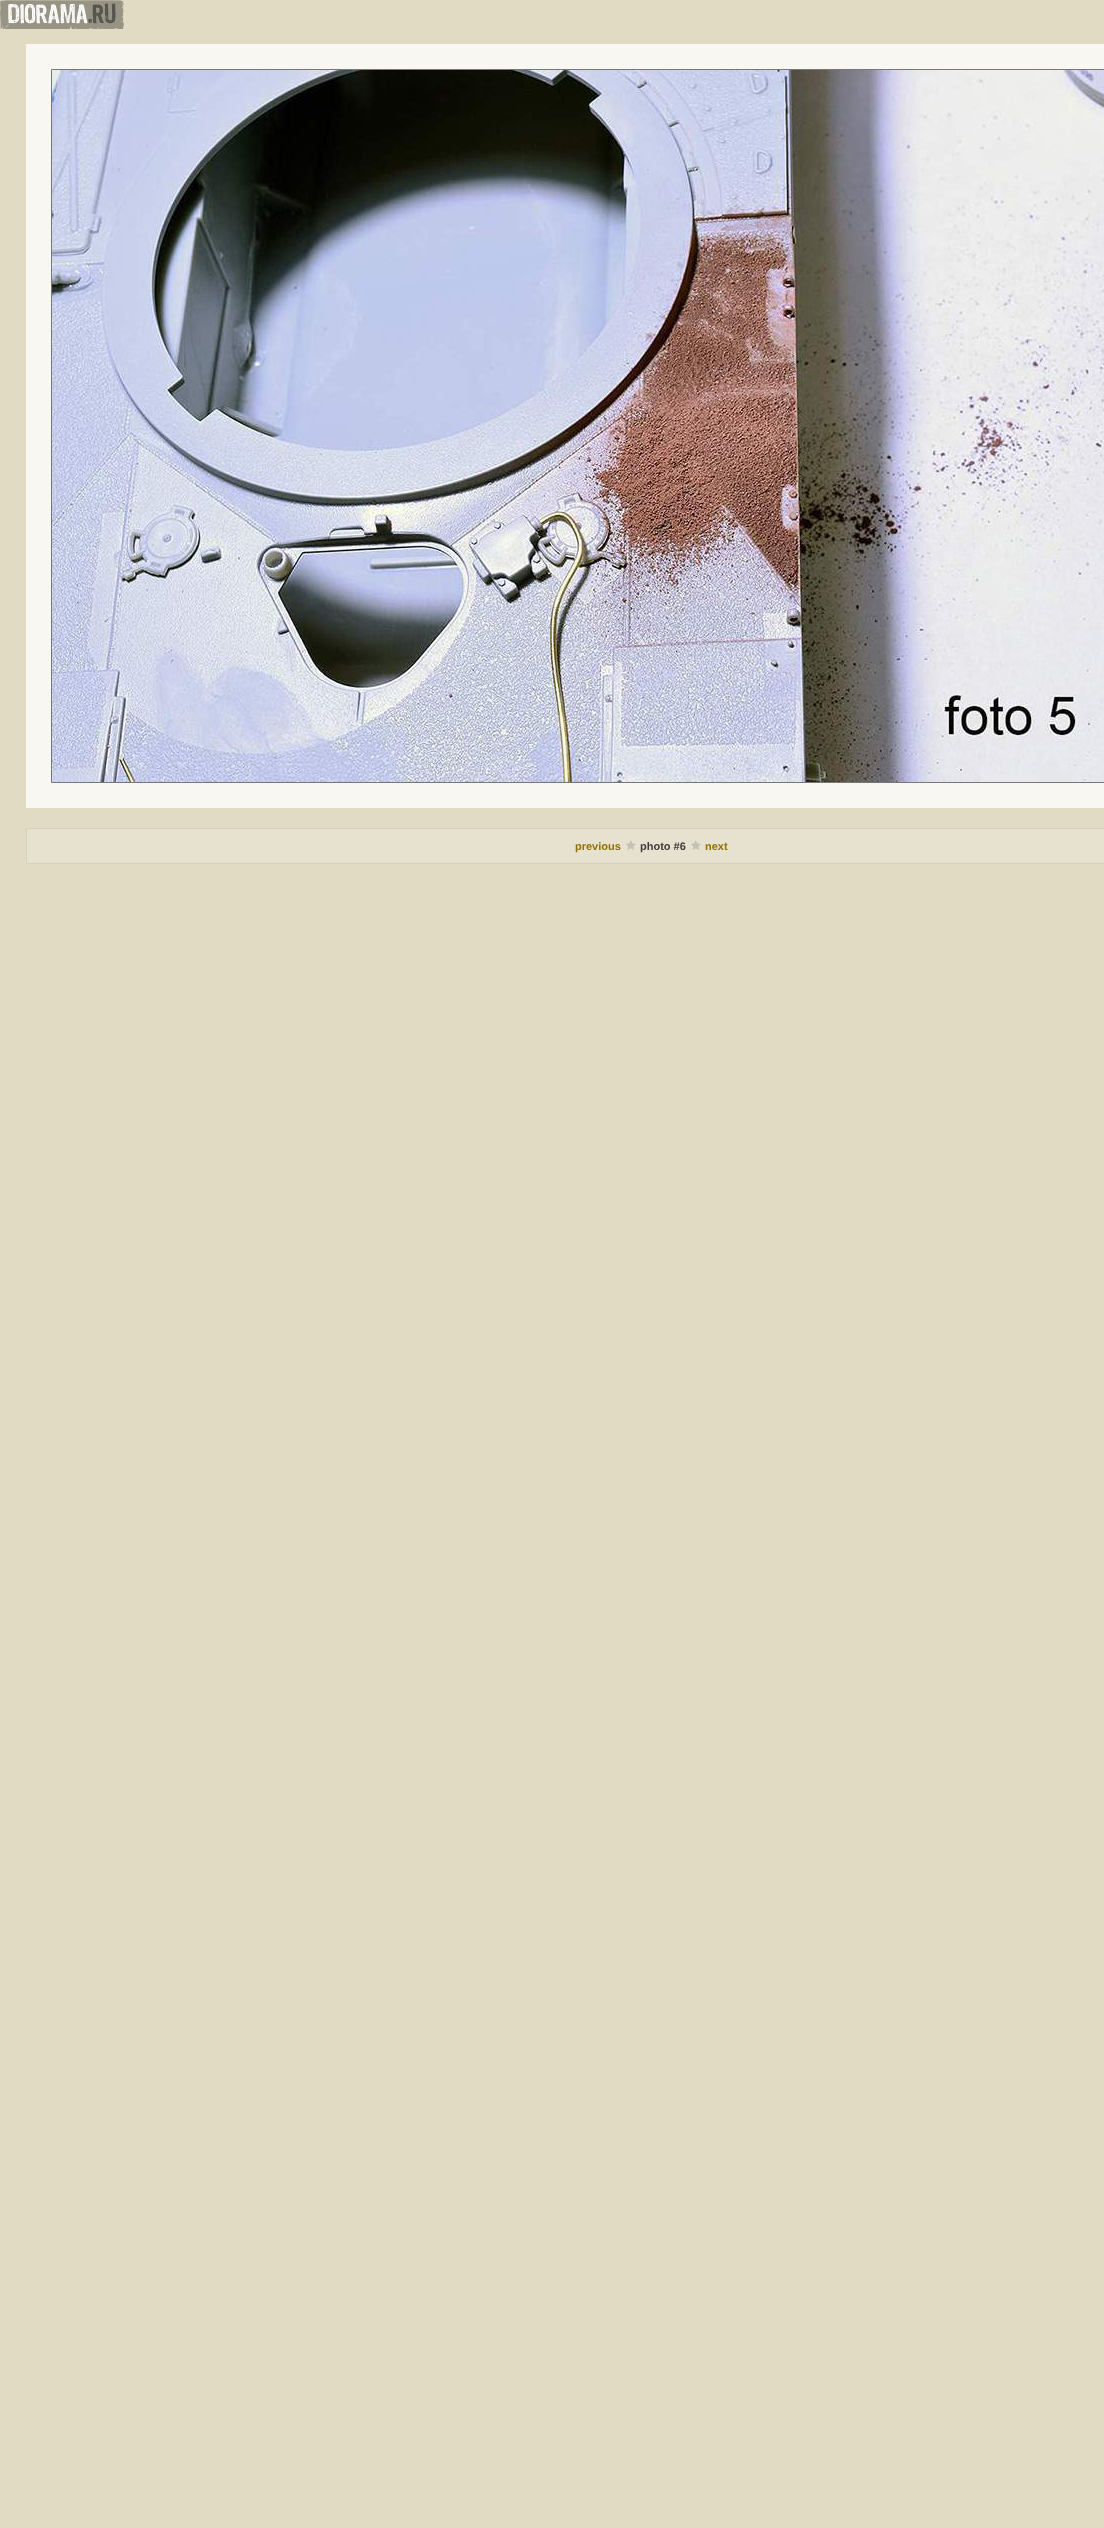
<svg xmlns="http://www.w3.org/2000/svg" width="1104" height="2528">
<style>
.a{font:bold 11px Liberation Sans;fill:#907300}
.b{font:bold 11px Liberation Sans;fill:#423c3b}
</style>
<rect width="100%" height="100%" fill="#e1dbc4"/>
<image href="1.png" x="0" y="0" width="124" height="29"/>
<path fill="#f8f7f2" d="M26 44h1078v764H26z"/>
<path fill="none" stroke="#777" d="M51.5 69.5h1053v713H51.5z"/>
<image href="2.png" x="52" y="70" width="1052" height="712"/>
<path fill="#e7e2d0" stroke="#d6d1bc" d="M26.5 828.5h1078v35H26.5z"/>
<image href="3.png" x="625" y="840" width="11" height="10"/>
<image href="3.png" x="690" y="840" width="11" height="10"/>
<text class="a" x="575" y="850">previous</text>
<text class="b" x="640" y="850">photo #6</text>
<text class="a" x="705" y="850">next</text>
</svg>
